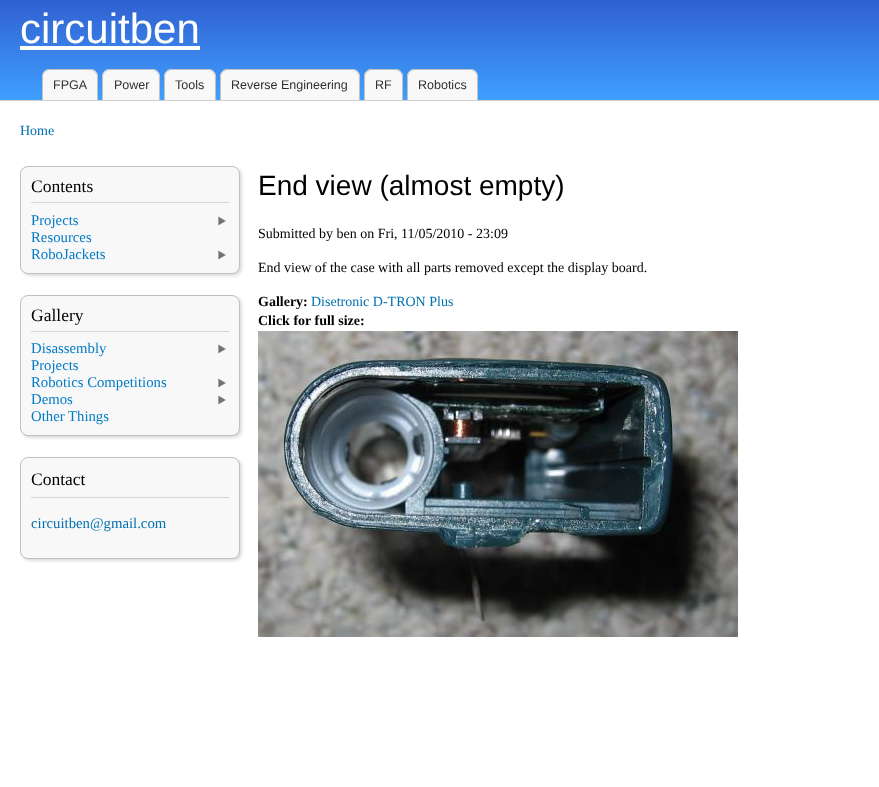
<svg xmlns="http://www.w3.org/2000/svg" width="879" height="787">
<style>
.a{font:42px Liberation Sans;fill:#fff}
.b{font:12.5px Liberation Sans;fill:#303030}
.c{font:14px Liberation Serif;fill:#0070b0}
.d{font:17.5px Liberation Serif;fill:#000}
.e{font:14.75px Liberation Serif;fill:#027ac6}
.f{font:14.75px Liberation Serif;fill:#0070b0}
.g{font:28px Liberation Sans;fill:#000}
.h{font:14px Liberation Serif;fill:#000}
.i{font:bold 14px Liberation Serif;fill:#000}
</style>
<defs>
<linearGradient id="g1" gradientUnits="userSpaceOnUse" x1="440" y1="0" x2="440" y2="101"><stop offset="0" stop-color="#3060d0"/><stop offset="1" stop-color="#40a0ff"/></linearGradient>
</defs>
<rect width="100%" height="100%" fill="#fff"/>
<path fill="url(#g1)" d="M0 0h879v100H0z"/>
<path fill="#fff" d="M20 46h180v4H20z"/>
<path fill="#d0d0d0" d="M0 100h879v1H0z"/>
<path fill="#f8f8f8" d="M50 69h40c4.5 0 8 3.5 8 8v23h-56v-23c0-4.5 3.5-8 8-8z"/>
<path fill="#c0c0c0" fill-rule="evenodd" d="M50 69h40c4 0 8 4 8 8v23h-56v-23c0-4 4-8 8-8zm0 1h40c4 0 7 3 7 7v23h-54v-23c0-4 3-7 7-7z"/>
<path fill="#f8f8f8" d="M110 69h42c4.5 0 8 3.5 8 8v23h-58v-23c0-4.5 3.5-8 8-8z"/>
<path fill="#c0c0c0" fill-rule="evenodd" d="M110 69h42c4 0 8 4 8 8v23h-58v-23c0-4 4-8 8-8zm0 1h42c4 0 7 3 7 7v23h-56v-23c0-4 3-7 7-7z"/>
<path fill="#f8f8f8" d="M172 69h36c4.5 0 8 3.5 8 8v23h-52v-23c0-4.5 3.5-8 8-8z"/>
<path fill="#c0c0c0" fill-rule="evenodd" d="M172 69h36c4 0 8 4 8 8v23h-52v-23c0-4 4-8 8-8zm0 1h36c4 0 7 3 7 7v23h-50v-23c0-4 3-7 7-7z"/>
<path fill="#f8f8f8" d="M228 69h124c4.5 0 8 3.5 8 8v23h-140v-23c0-4.5 3.5-8 8-8z"/>
<path fill="#c0c0c0" fill-rule="evenodd" d="M228 69h124c4 0 8 4 8 8v23h-140v-23c0-4 4-8 8-8zm0 1h124c4 0 7 3 7 7v23h-138v-23c0-4 3-7 7-7z"/>
<path fill="#f8f8f8" d="M372 69h23c4.5 0 8 3.5 8 8v23h-39v-23c0-4.5 3.5-8 8-8z"/>
<path fill="#c0c0c0" fill-rule="evenodd" d="M372 69h23c4.5 0 8 3.5 8 8v23h-39v-23c0-4.5 3.5-8 8-8zm0 1h23c4 0 7 3 7 7v23h-37v-23c0-4 3-7 7-7z"/>
<path fill="#f8f8f8" d="M415 69h55c4.5 0 8 3.5 8 8v23h-71v-23c0-4.5 3.5-8 8-8z"/>
<path fill="#c0c0c0" fill-rule="evenodd" d="M415 69h55c4 0 8 4 8 8v23h-71v-23c0-4 4-8 8-8zm0 1h55c4 0 7 3 7 7v23h-69v-23c0-4 3-7 7-7z"/>
<rect fill="#ddd" filter="blur(1.5px)" x="22" y="168" width="220" height="108" rx="8"/>
<rect fill="#f8f8f8" stroke="#c0c0c0" x="20.5" y="166.5" width="219" height="107" rx="7.5"/>
<path fill="#d6d6d6" d="M31 202h198v1H31z"/>
<image href="1.png" x="218" y="216" width="8" height="10"/>
<image href="1.png" x="218" y="250" width="8" height="10"/>
<rect fill="#ddd" filter="blur(1.5px)" x="22" y="297" width="220" height="141" rx="8"/>
<rect fill="#f8f8f8" stroke="#c0c0c0" x="20.5" y="295.5" width="219" height="140" rx="7.5"/>
<path fill="#d6d6d6" d="M31 331h198v1H31z"/>
<image href="1.png" x="218" y="344" width="8" height="10"/>
<image href="1.png" x="218" y="378" width="8" height="10"/>
<image href="1.png" x="218" y="395" width="8" height="10"/>
<rect fill="#ddd" filter="blur(1.5px)" x="22" y="459" width="220" height="102" rx="8"/>
<rect fill="#f8f8f8" stroke="#c0c0c0" x="20.5" y="457.5" width="219" height="101" rx="7.5"/>
<path fill="#d6d6d6" d="M31 497h198v1H31z"/>
<image href="2.png" x="258" y="331" width="480" height="306"/>
<text class="a" x="20" y="43">circuitben</text>
<text class="b" x="53" y="89">FPGA</text>
<text class="b" x="114" y="89">Power</text>
<text class="b" x="175" y="89">Tools</text>
<text class="b" x="231" y="89">Reverse Engineering</text>
<text class="b" x="375" y="89">RF</text>
<text class="b" x="418" y="89">Robotics</text>
<text class="c" x="20" y="135">Home</text>
<text class="d" x="31" y="192">Contents</text>
<text class="e" x="31" y="225">Projects</text>
<text class="e" x="31" y="242">Resources</text>
<text class="e" x="31" y="259">RoboJackets</text>
<text class="d" x="31" y="321">Gallery</text>
<text class="e" x="31" y="353">Disassembly</text>
<text class="e" x="31" y="370">Projects</text>
<text class="e" x="31" y="387">Robotics Competitions</text>
<text class="e" x="31" y="404">Demos</text>
<text class="e" x="31" y="421">Other Things</text>
<text class="d" x="31" y="485">Contact</text>
<text class="f" x="31" y="528">circuitben@gmail.com</text>
<text class="g" x="258" y="195">End view (almost empty)</text>
<text class="h" x="258" y="238">Submitted by ben on Fri, 11/05/2010 - 23:09</text>
<text class="h" x="258" y="272">End view of the case with all parts removed except the display board.</text>
<text class="i" x="258" y="306">Gallery:</text>
<text class="c" x="311" y="306">Disetronic D-TRON Plus</text>
<text class="i" x="258" y="325">Click for full size:</text>
</svg>
